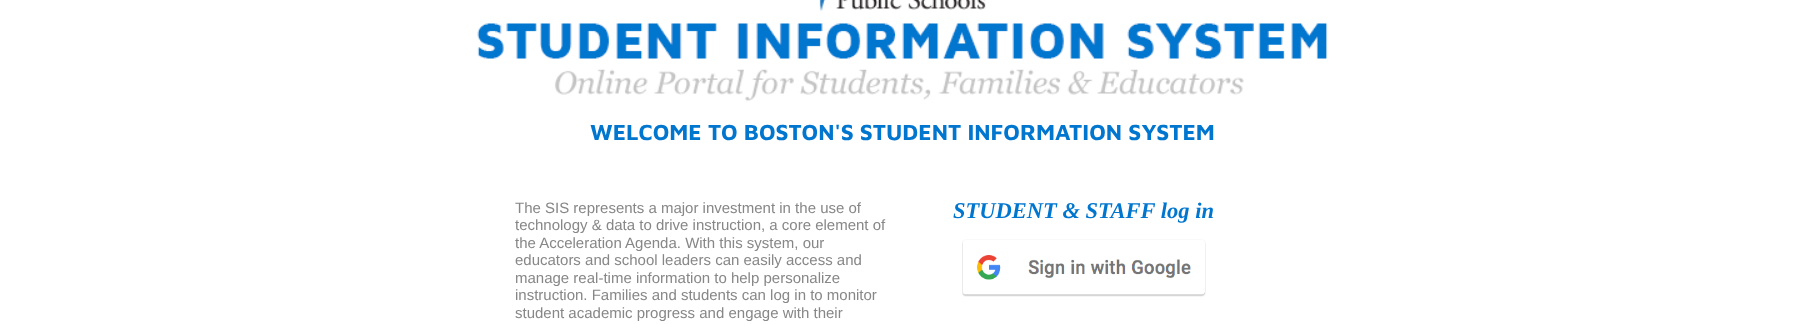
<svg xmlns="http://www.w3.org/2000/svg" width="1805" height="324">
<style>
.a{font:bold 22.5px Maven Pro;fill:#0076cf}
.b{font:15px Liberation Sans;fill:#878787}
.c{font:italic bold 22.5px Liberation Serif;fill:#0076cf}
</style>
<rect width="100%" height="100%" fill="#fff"/>
<image href="1.png" x="477" y="0" width="851" height="101"/>
<image href="2.png" x="962" y="239" width="244" height="58"/>
<text class="a" x="590" y="140">WELCOME TO BOSTON'S STUDENT INFORMATION SYSTEM</text>
<text class="b" x="515" y="213">The SIS represents a major investment in the use of</text>
<text class="b" x="515" y="230">technology &amp; data to drive instruction, a core element of</text>
<text class="b" x="515" y="248">the Acceleration Agenda. With this system, our</text>
<text class="b" x="515" y="265">educators and school leaders can easily access and</text>
<text class="b" x="515" y="283">manage real-time information to help personalize</text>
<text class="b" x="515" y="300">instruction. Families and students can log in to monitor</text>
<text class="b" x="515" y="318">student academic progress and engage with their</text>
<text class="c" x="953" y="218">STUDENT &amp; STAFF log in</text>
</svg>
